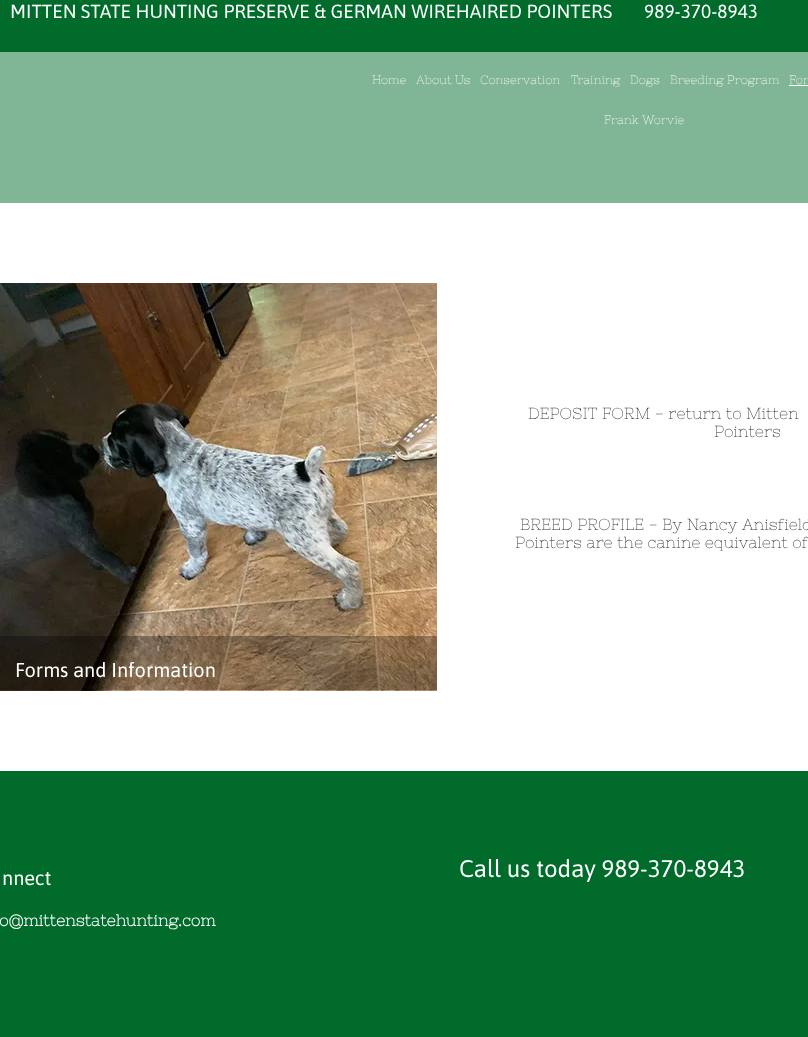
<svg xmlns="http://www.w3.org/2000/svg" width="808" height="1037">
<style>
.a{font:19px Asap;fill:#fff}
.b{font:12px Nixie One;fill:#fff}
.c{font:16px Nixie One;fill:#333}
.d{font:20px Asap;fill:#fff}
.e{font:bold 16px Nixie One;fill:#fff}
.f{font:24px Asap;fill:#fff}
</style>
<defs>
<clipPath id="clip1"><path d="M502 515h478v36H502z"/></clipPath>
</defs>
<rect width="100%" height="100%" fill="#80b595"/>
<path fill="#006b2a" d="M0 0h808v52H0z"/>
<path fill="#fff" d="M789 85h19v1H789z"/>
<path fill="#fff" d="M0 203h808v568H0z"/>
<image href="1.png" x="0" y="283" width="437" height="408"/>
<path fill="#0000004d" d="M0 636h437v54H0z"/>
<path fill="#006b2a" d="M0 771h808v266H0z"/>
<text class="a" xml:space="preserve" x="10" y="18">MITTEN STATE HUNTING PRESERVE &amp; GERMAN WIREHAIRED POINTERS       989-370-8943</text>
<text class="b" x="372" y="84">Home</text>
<text class="b" x="416" y="84">About Us</text>
<text class="b" x="480" y="84">Conservation</text>
<text class="b" x="571" y="84">Training</text>
<text class="b" x="630" y="84">Dogs</text>
<text class="b" x="670" y="84">Breeding Program</text>
<text class="b" x="789" y="84">For</text>
<text class="b" x="604" y="124">Frank Worvie</text>
<text class="c" x="528" y="419">DEPOSIT FORM - return to Mitten</text>
<text class="c" x="714" y="437">Pointers</text>
<text class="c" x="520" y="530">BREED PROFILE - By Nancy Anisfield</text>
<g clip-path="url(#clip1)">
<text class="c" x="515" y="548">Pointers are the canine equivalent of</text>
</g>
<text class="d" x="15" y="677">Forms and Information</text>
<text class="d" x="2" y="885">nnect</text>
<text class="e" x="-1" y="926">o@mittenstatehunting.com</text>
<text class="f" x="459" y="877">Call us today 989-370-8943</text>
</svg>
